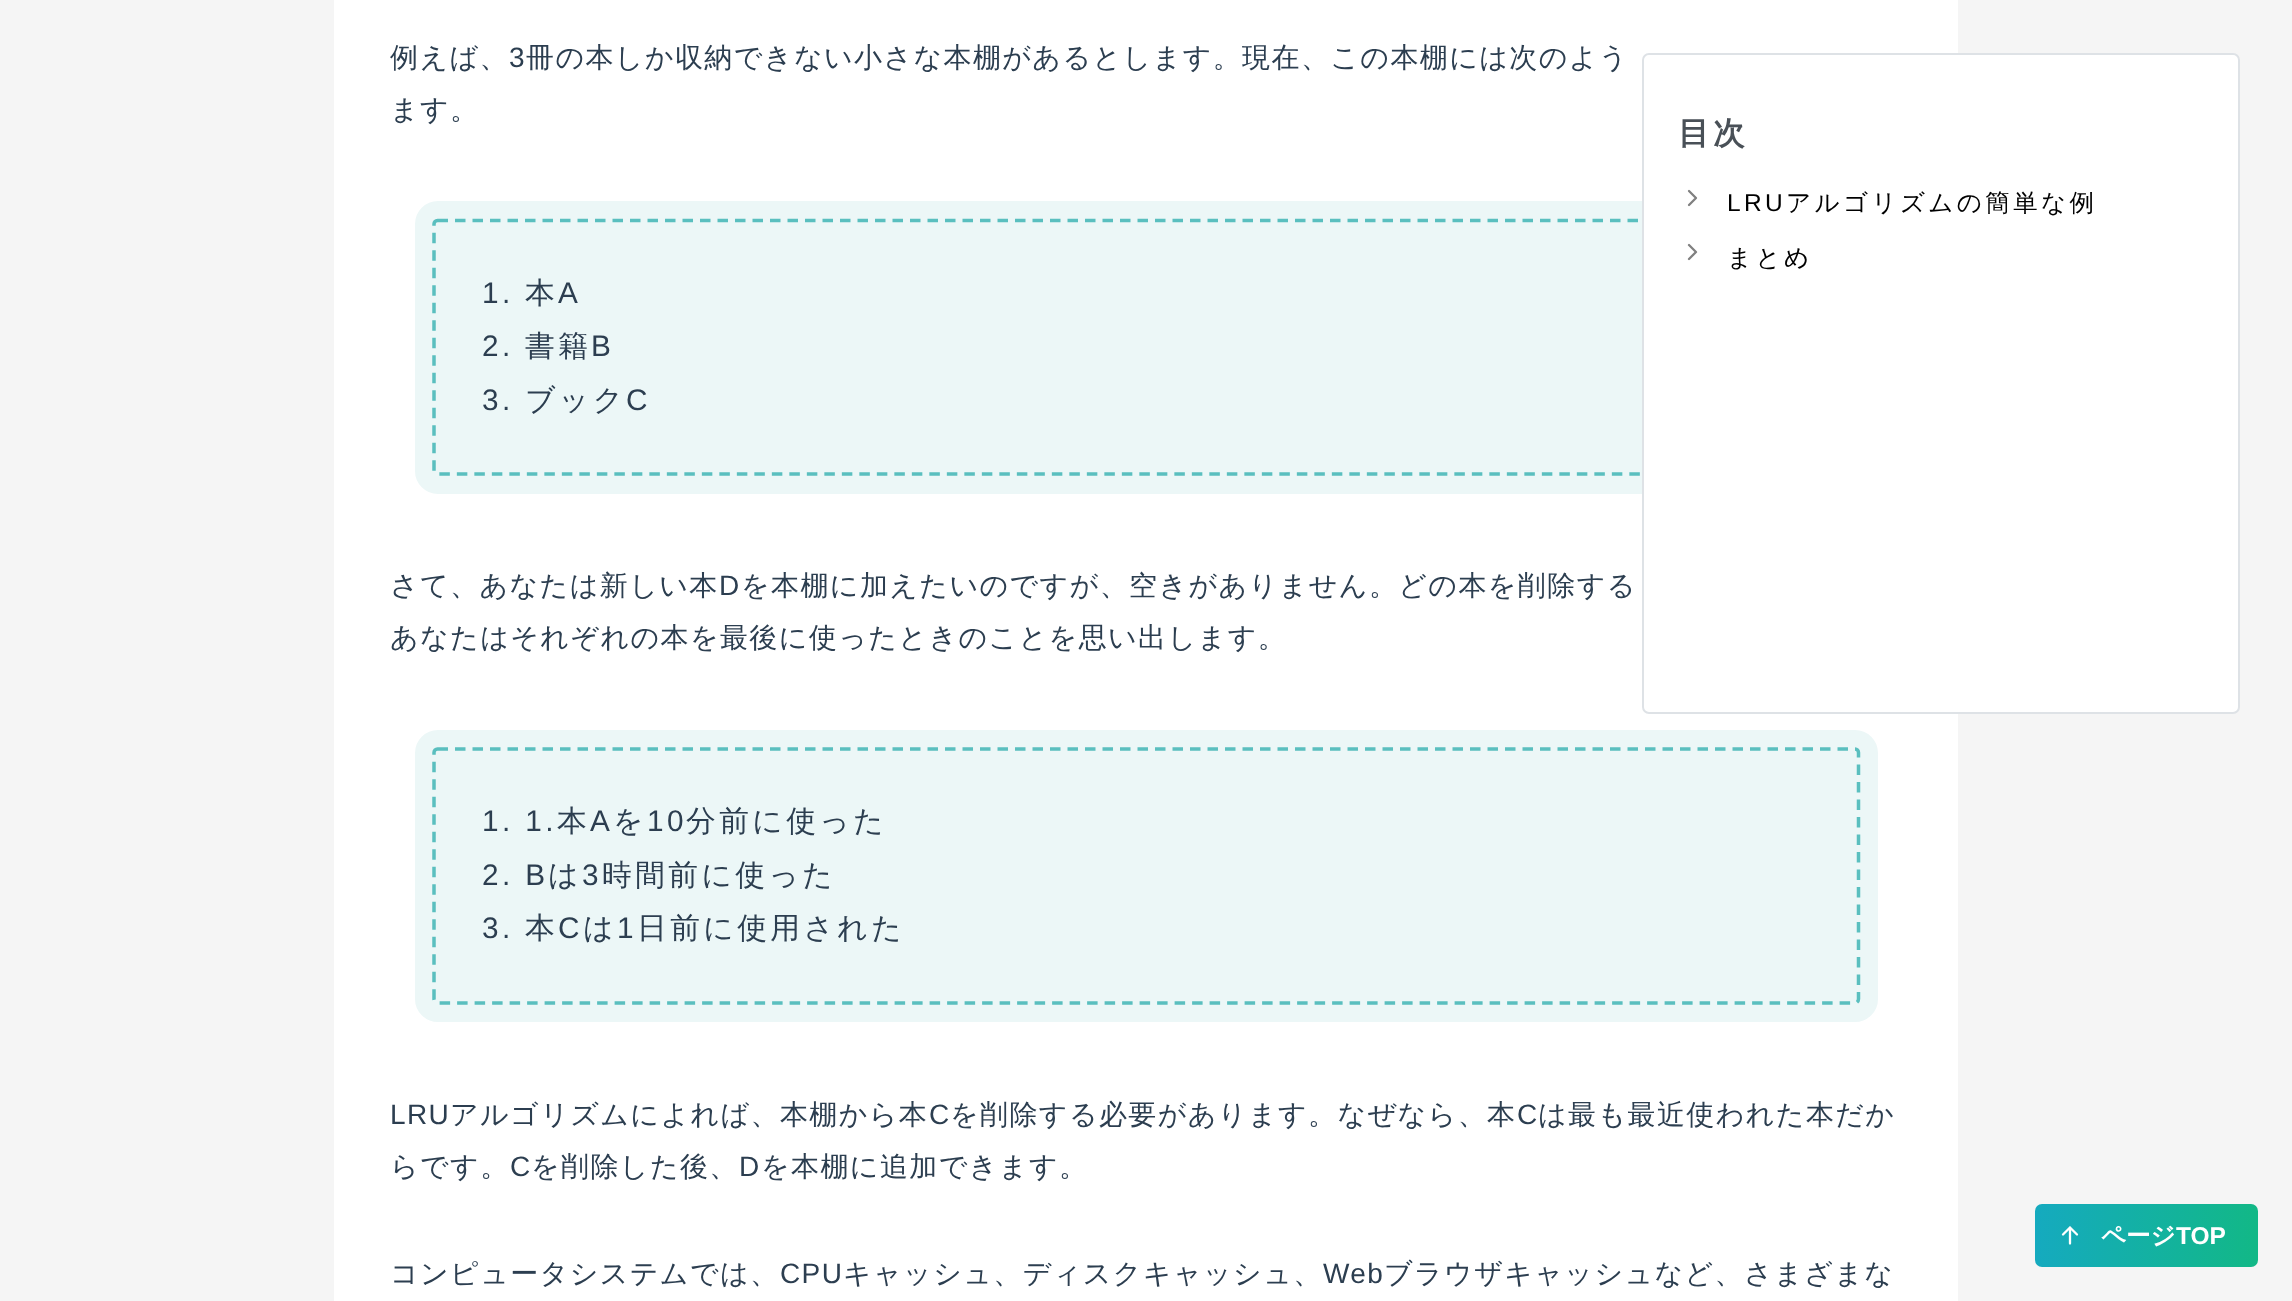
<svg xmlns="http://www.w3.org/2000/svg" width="2292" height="1301">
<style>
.a{font:500 28px WenQuanYi Zen Hei;letter-spacing:1.4px;fill:#2c3e50}
.b{font:28px Liberation Sans;letter-spacing:1.4px;fill:#2c3e50}
.c{font:29.75px Liberation Sans;letter-spacing:3.4px;fill:#2c3e50}
.d{font:500 29.75px WenQuanYi Zen Hei;letter-spacing:3.4px;fill:#2c3e50}
.e{font:bold 31.5px WenQuanYi Zen Hei;letter-spacing:3.4px;fill:#495057}
.f{font:24.5px Liberation Sans;letter-spacing:3.4px;fill:#000}
.g{font:500 24.5px WenQuanYi Zen Hei;letter-spacing:3.4px;fill:#000}
.h{font:bold 24.5px WenQuanYi Zen Hei;fill:#fff}
.i{font:bold 24.5px Liberation Sans;fill:#fff}
</style>
<defs>
<linearGradient id="g1" gradientUnits="userSpaceOnUse" x1="2035" y1="1236" x2="2258" y2="1236"><stop offset="0" stop-color="#15aabf"/><stop offset="1" stop-color="#12b886"/></linearGradient>
</defs>
<rect width="100%" height="100%" fill="#f5f5f5"/>
<path fill="#fff" d="M334 0h1624v1301H334z"/>
<rect fill="none" stroke="#ecf7f7" stroke-width="18" x="424" y="210" width="1445" height="275" rx="14"/>
<rect fill="#ecf7f7" x="432" y="219" width="1428" height="257" rx="5"/>
<path fill="none" stroke="#5abfbf" stroke-width="3.5" stroke-dasharray="10.5 7" d="M437.5 220.5h1417.5c2 0 3.5 1.5 3.5 3.5v247c0 1.5-1.5 3-3.5 3h-1417.5c-2 0-3.5-1.5-3.5-3v-247c0-2 1.5-3.5 3.5-3.5z"/>
<rect fill="none" stroke="#ecf7f7" stroke-width="18" x="424" y="739" width="1445" height="274" rx="14"/>
<rect fill="#ecf7f7" x="432" y="747" width="1428" height="258" rx="5"/>
<path fill="none" stroke="#5abfbf" stroke-width="3.5" stroke-dasharray="10.5 7" d="M437.5 749h1417.5c2 0 3.5 1.5 3.5 3.5v246.5c0 2-1.5 4-3.5 4h-1417.5c-2 0-3.5-2-3.5-4v-246.5c0-2 1.5-3.5 3.5-3.5z"/>
<rect fill="#fff" stroke="#dee2e6" stroke-width="2" x="1643" y="54" width="596" height="659" rx="6"/>
<path fill="none" stroke="#808080" stroke-width="2.3" stroke-linecap="round" stroke-linejoin="round" d="M1689 191l7 7l-7 7"/>
<path fill="none" stroke="#808080" stroke-width="2.3" stroke-linecap="round" stroke-linejoin="round" d="M1689 245l7 7l-7 7"/>
<rect fill="url(#g1)" x="2035" y="1204" width="223" height="63" rx="7"/>
<path fill="none" stroke="#fff" stroke-width="2.3" stroke-linecap="round" stroke-linejoin="round" d="M2070 1227.5v16m7-9l-7-7m-7 7l7-7"/>
<text class="a" x="390" y="67">例えば、</text>
<text class="b" x="509" y="67">3</text>
<text class="a" x="526" y="67">冊の本しか収納できない小さな本棚があるとします。現在、この本棚には次のよう</text>
<text class="a" x="390" y="119">ます。</text>
<text class="c" x="482" y="303">1.</text>
<text class="d" x="525" y="303">本</text>
<text class="c" x="558" y="303">A</text>
<text class="c" x="482" y="356">2.</text>
<text class="d" x="525" y="356">書籍</text>
<text class="c" x="591" y="356">B</text>
<text class="c" x="482" y="410">3.</text>
<text class="d" x="525" y="410">ブック</text>
<text class="c" x="626" y="410">C</text>
<text class="a" x="390" y="595">さて、あなたは新しい本</text>
<text class="b" x="719" y="595">D</text>
<text class="a" x="741" y="595">を本棚に加えたいのですが、空きがありません。どの本を削除する</text>
<text class="a" x="390" y="647">あなたはそれぞれの本を最後に使ったときのことを思い出します。</text>
<text class="c" x="482" y="831">1. 1.</text>
<text class="d" x="557" y="831">本</text>
<text class="c" x="590" y="831">A</text>
<text class="d" x="613" y="831">を</text>
<text class="c" x="647" y="831">10</text>
<text class="d" x="686" y="831">分前に使った</text>
<text class="c" x="482" y="885">2. B</text>
<text class="d" x="548" y="885">は</text>
<text class="c" x="582" y="885">3</text>
<text class="d" x="602" y="885">時間前に使った</text>
<text class="c" x="482" y="938">3.</text>
<text class="d" x="525" y="938">本</text>
<text class="c" x="558" y="938">C</text>
<text class="d" x="583" y="938">は</text>
<text class="c" x="617" y="938">1</text>
<text class="d" x="637" y="938">日前に使用された</text>
<text class="b" x="390" y="1124">LRU</text>
<text class="a" x="450" y="1124">アルゴリズムによれば、本棚から本</text>
<text class="b" x="929" y="1124">C</text>
<text class="a" x="950" y="1124">を削除する必要があります。なぜなら、本</text>
<text class="b" x="1517" y="1124">C</text>
<text class="a" x="1538" y="1124">は最も最近使われた本だか</text>
<text class="a" x="390" y="1176">らです。</text>
<text class="b" x="510" y="1176">C</text>
<text class="a" x="531" y="1176">を削除した後、</text>
<text class="b" x="739" y="1176">D</text>
<text class="a" x="761" y="1176">を本棚に追加できます。</text>
<text class="a" x="390" y="1283">コンピュータシステムでは、</text>
<text class="b" x="780" y="1283">CPU</text>
<text class="a" x="843" y="1283">キャッシュ、ディスクキャッシュ、</text>
<text class="b" x="1323" y="1283">Web</text>
<text class="a" x="1384" y="1283">ブラウザキャッシュなど、さまざまな</text>
<text class="e" x="1678" y="144">目次</text>
<text class="f" x="1727" y="211">LRU</text>
<text class="g" x="1786" y="211">アルゴリズムの簡単な例</text>
<text class="g" x="1727" y="266">まとめ</text>
<text class="h" x="2101" y="1244">ページ</text>
<text class="i" x="2176" y="1244">TOP</text>
</svg>
